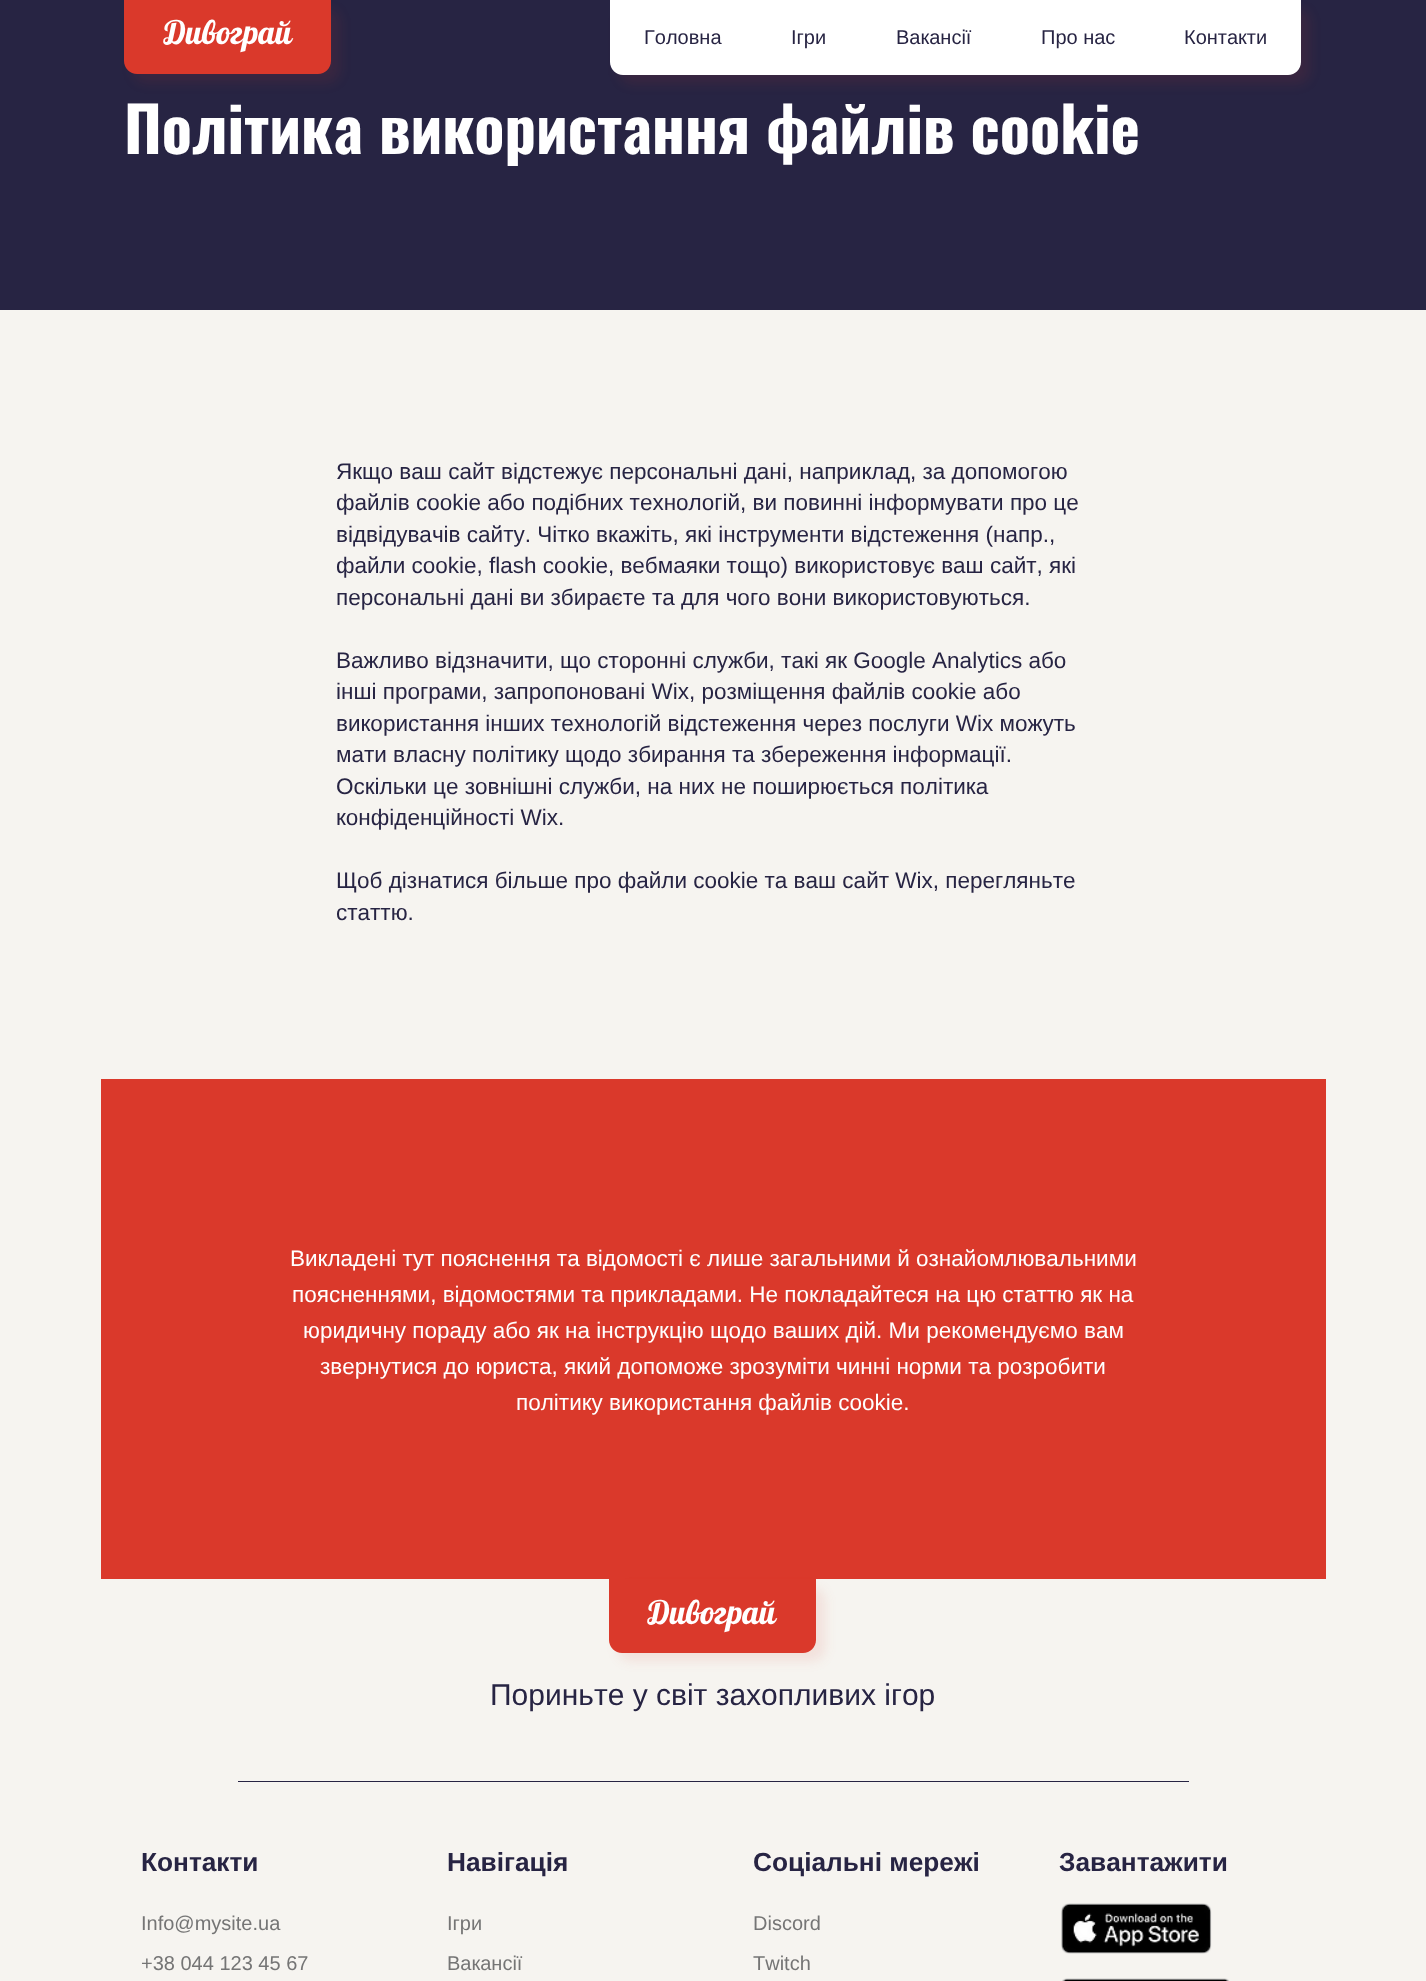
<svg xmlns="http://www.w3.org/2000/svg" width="1426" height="1981">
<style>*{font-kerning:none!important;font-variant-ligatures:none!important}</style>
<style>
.a{font:32.5px Lobster;fill:#fff}
.b{font:20px Liberation Sans;fill:#272443}
.c{font:bold 62.5px Oswald;fill:#fff}
.d{font:22.5px Liberation Sans;fill:#272443}
.e{font:22.5px Liberation Sans;fill:#fff}
.f{font:30px Liberation Sans;fill:#272443}
.g{font:bold 26.25px Liberation Sans;fill:#272443}
.h{font:20px Liberation Sans;fill:#757575}
</style>
<rect width="100%" height="100%" fill="#f6f4f0"/>
<path fill="#272443" d="M0 0h1426v310H0z"/>
<rect fill="#da392b1a" filter="blur(6px)" x="133" y="9" width="207" height="74" rx="13"/>
<path fill="#da392b" d="M124 0h207v61c0 7-6 13-13 13h-181c-7 0-13-6-13-13z"/>
<rect fill="#da392b1a" filter="blur(6px)" x="619" y="9" width="691" height="75" rx="13"/>
<path fill="#fff" d="M610 0h691v62c0 7-6 13-13 13h-665c-7 0-13-6-13-13z"/>
<path fill="#da392b" d="M101 1079h1225v500H101z"/>
<rect fill="#da392b1a" filter="blur(6px)" x="618" y="1588" width="207" height="73" rx="13"/>
<path fill="#da392b" d="M609 1579h207v61c0 7-6 13-13 13h-181c-7 0-13-6-13-13z"/>
<path fill="#272443" d="M238 1781h951v1H238z"/>
<image href="1.png" x="1061" y="1903" width="151" height="51"/>
<image href="2.png" x="1062" y="1978" width="167" height="3"/>
<text class="a" x="164" y="44">Дивограй</text>
<text class="b" x="644" y="44">Головна</text>
<text class="b" x="791" y="44">Ігри</text>
<text class="b" x="896" y="44">Вакансії</text>
<text class="b" x="1041" y="44">Про нас</text>
<text class="b" x="1184" y="44">Контакти</text>
<text class="c" x="124" y="154">Політика використання файлів cookie</text>
<text class="d" x="336" y="479">Якщо ваш сайт відстежує персональні дані, наприклад, за допомогою</text>
<text class="d" x="336" y="510">файлів cookie або подібних технологій, ви повинні інформувати про це</text>
<text class="d" x="336" y="542">відвідувачів сайту. Чітко вкажіть, які інструменти відстеження (напр.,</text>
<text class="d" x="336" y="573">файли cookie, flash cookie, вебмаяки тощо) використовує ваш сайт,</text>
<text class="d" x="1049" y="573">які</text>
<text class="d" x="336" y="605">персональні дані ви збираєте та для чого вони використовуються.</text>
<text class="d" x="336" y="668">Важливо відзначити, що сторонні служби, такі як Google Analytics або</text>
<text class="d" x="336" y="699">інші програми, запропоновані Wix, розміщення файлів cookie або</text>
<text class="d" x="336" y="731">використання інших технологій відстеження через послуги Wix можуть</text>
<text class="d" x="336" y="762">мати власну політику щодо збирання та збереження інформації.</text>
<text class="d" x="336" y="794">Оскільки це зовнішні служби, на них не поширюється політика</text>
<text class="d" x="336" y="825">конфіденційності Wix.</text>
<text class="d" x="336" y="888">Щоб дізнатися більше про файли cookie та ваш сайт Wix, перегляньте</text>
<text class="d" x="336" y="920">статтю.</text>
<text class="e" x="290" y="1266">Викладені тут пояснення та відомості є лише загальними й ознайомлювальними</text>
<text class="e" x="292" y="1302">поясненнями, відомостями та прикладами. Не покладайтеся на цю статтю як на</text>
<text class="e" x="303" y="1338">юридичну пораду або як на інструкцію щодо ваших дій. Ми рекомендуємо вам</text>
<text class="e" x="320" y="1374">звернутися до юриста, який допоможе зрозуміти чинні норми та розробити</text>
<text class="e" x="516" y="1410">політику використання файлів cookie.</text>
<text class="a" x="648" y="1624">Дивограй</text>
<text class="f" x="490" y="1705">Пориньте у світ захопливих ігор</text>
<text class="g" x="141" y="1871">Контакти</text>
<text class="h" x="141" y="1930">Info@mysite.ua</text>
<text class="h" x="141" y="1970">+38 044 123 45 67</text>
<text class="g" x="447" y="1871">Навігація</text>
<text class="h" x="447" y="1930">Ігри</text>
<text class="h" x="447" y="1970">Вакансії</text>
<text class="g" x="753" y="1871">Соціальні мережі</text>
<text class="h" x="753" y="1930">Discord</text>
<text class="h" x="753" y="1970">Twitch</text>
<text class="g" x="1059" y="1871">Завантажити</text>
</svg>
